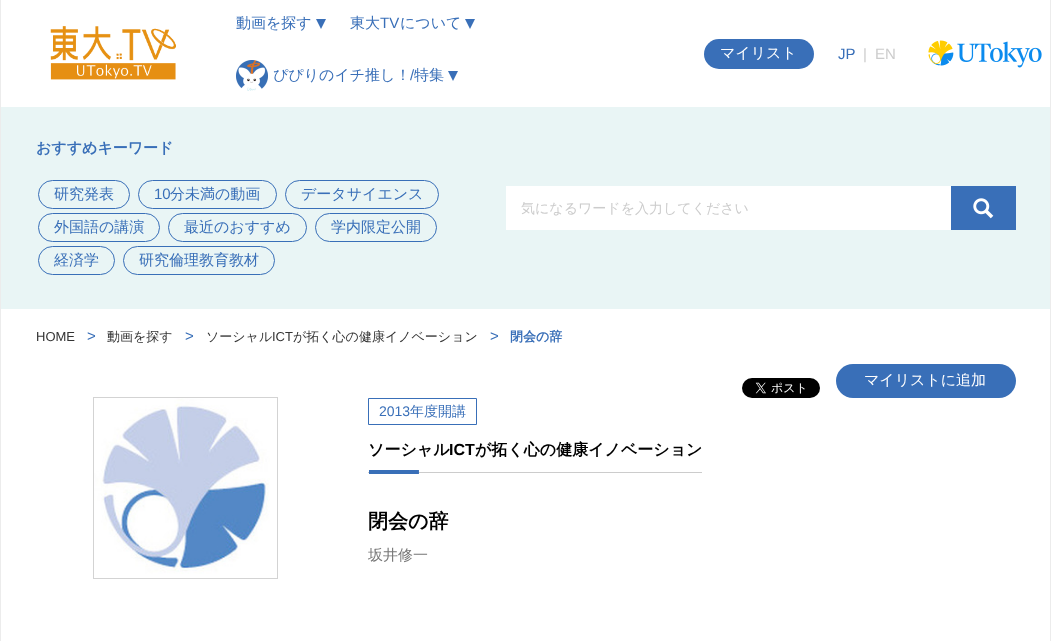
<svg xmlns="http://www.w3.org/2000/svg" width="1051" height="641">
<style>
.a{font:500 15px WenQuanYi Zen Hei;fill:#396fb8}
.b{font:15px Liberation Sans;fill:#396fb8}
.c{font:500 15px WenQuanYi Zen Hei;fill:#fff}
.d{font:15px Liberation Sans;fill:#ccc}
.e{font:bold 15px WenQuanYi Zen Hei;fill:#396fb8}
.f{font:500 14px WenQuanYi Zen Hei;fill:#ccc}
.g{font:13px Liberation Sans;fill:#333}
.h{font:500 13px WenQuanYi Zen Hei;fill:#333}
.i{font:bold 13px WenQuanYi Zen Hei;fill:#396fb8}
.j{font:14px Liberation Sans;fill:#396fb8}
.k{font:500 14px WenQuanYi Zen Hei;fill:#396fb8}
.l{font:bold 16px WenQuanYi Zen Hei;fill:#000}
.m{font:bold 16px Liberation Sans;fill:#000}
.n{font:bold 20px WenQuanYi Zen Hei;fill:#000}
.o{font:500 15px WenQuanYi Zen Hei;fill:#777}
</style>
<rect width="100%" height="100%" fill="#fff"/>
<path fill="#ececec" d="M1050 0h1v641H1050z"/>
<path fill="#ececec" d="M0 0h1v641H0z"/>
<image href="1.png" x="50" y="26" width="126" height="54"/>
<path fill="#396fb8" d="M321 29l-5-10h10z"/>
<path fill="#396fb8" d="M470 29l-5-10h10z"/>
<image href="2.png" x="236" y="60" width="32" height="31"/>
<path fill="#396fb8" d="M453 81l-5-10h10z"/>
<rect fill="#396fb8" x="704" y="39" width="110" height="30" rx="15"/>
<image href="3.png" x="928" y="40" width="114" height="28"/>
<path fill="#e9f5f5" d="M1 107h1049v202H1z"/>
<rect fill="none" stroke="#396fb8" x="38.5" y="180.5" width="91" height="28" rx="14"/>
<rect fill="none" stroke="#396fb8" x="138.5" y="180.5" width="138" height="28" rx="14"/>
<rect fill="none" stroke="#396fb8" x="285.5" y="180.5" width="153" height="28" rx="14"/>
<rect fill="none" stroke="#396fb8" x="38.5" y="213.5" width="121" height="28" rx="14"/>
<rect fill="none" stroke="#396fb8" x="168.5" y="213.5" width="138" height="28" rx="14"/>
<rect fill="none" stroke="#396fb8" x="315.5" y="213.5" width="121" height="28" rx="14"/>
<rect fill="none" stroke="#396fb8" x="38.5" y="246.5" width="76" height="28" rx="14"/>
<rect fill="none" stroke="#396fb8" x="123.5" y="246.5" width="151" height="28" rx="14"/>
<path fill="#fff" d="M506 186h445v44H506z"/>
<path fill="#396fb8" d="M951 186h65v44H951z"/>
<image href="4.png" x="973" y="198" width="21" height="21"/>
<image href="5.png" x="742" y="378" width="78" height="20"/>
<rect fill="#396fb8" x="836" y="364" width="180" height="34" rx="17"/>
<image href="6.png" x="93" y="397" width="185" height="182"/>
<path fill="none" stroke="#396fb8" d="M368.5 398.5h108v26H368.5z"/>
<image href="7.png" x="368" y="470" width="334" height="4"/>
<text class="a" x="236" y="28">動画を探す</text>
<text class="a" x="350" y="28">東大</text>
<text class="b" x="380" y="28">TV</text>
<text class="a" x="400" y="28">について</text>
<text class="a" x="273" y="80">ぴぴりのイチ推し！</text>
<text class="b" x="410" y="80">/</text>
<text class="a" x="414" y="80">特集</text>
<text class="c" x="720" y="58">マイリスト</text>
<text class="b" x="838" y="59">JP</text>
<text class="d" x="863" y="59">|</text>
<text class="d" x="875" y="59">EN</text>
<text class="e" x="36" y="153">おすすめキーワード</text>
<text class="a" x="54" y="199">研究発表</text>
<text class="b" x="154" y="199">10</text>
<text class="a" x="170" y="199">分未満の動画</text>
<text class="a" x="301" y="199">データサイエンス</text>
<text class="a" x="54" y="232">外国語の講演</text>
<text class="a" x="184" y="232">最近のおすすめ</text>
<text class="a" x="331" y="232">学内限定公開</text>
<text class="a" x="54" y="265">経済学</text>
<text class="a" x="139" y="265">研究倫理教育教材</text>
<text class="f" x="521" y="213">気になるワードを入力してください</text>
<text class="g" x="36" y="341">HOME</text>
<text class="b" x="87" y="341">&gt;</text>
<text class="h" x="107" y="341">動画を探す</text>
<text class="b" x="185" y="341">&gt;</text>
<text class="h" x="206" y="341">ソーシャル</text>
<text class="g" x="272" y="341">ICT</text>
<text class="h" x="293" y="341">が拓く心の健康イノベーション</text>
<text class="b" x="490" y="341">&gt;</text>
<text class="i" x="510" y="341">閉会の辞</text>
<text class="c" x="864" y="385">マイリストに追加</text>
<text class="j" x="379" y="416">2013</text>
<text class="k" x="410" y="416">年度開講</text>
<text class="l" x="368" y="455">ソーシャル</text>
<text class="m" x="449" y="455">ICT</text>
<text class="l" x="475" y="455">が拓く心の健康イノベーション</text>
<text class="n" x="368" y="528">閉会の辞</text>
<text class="o" x="368" y="560">坂井修一</text>
</svg>
